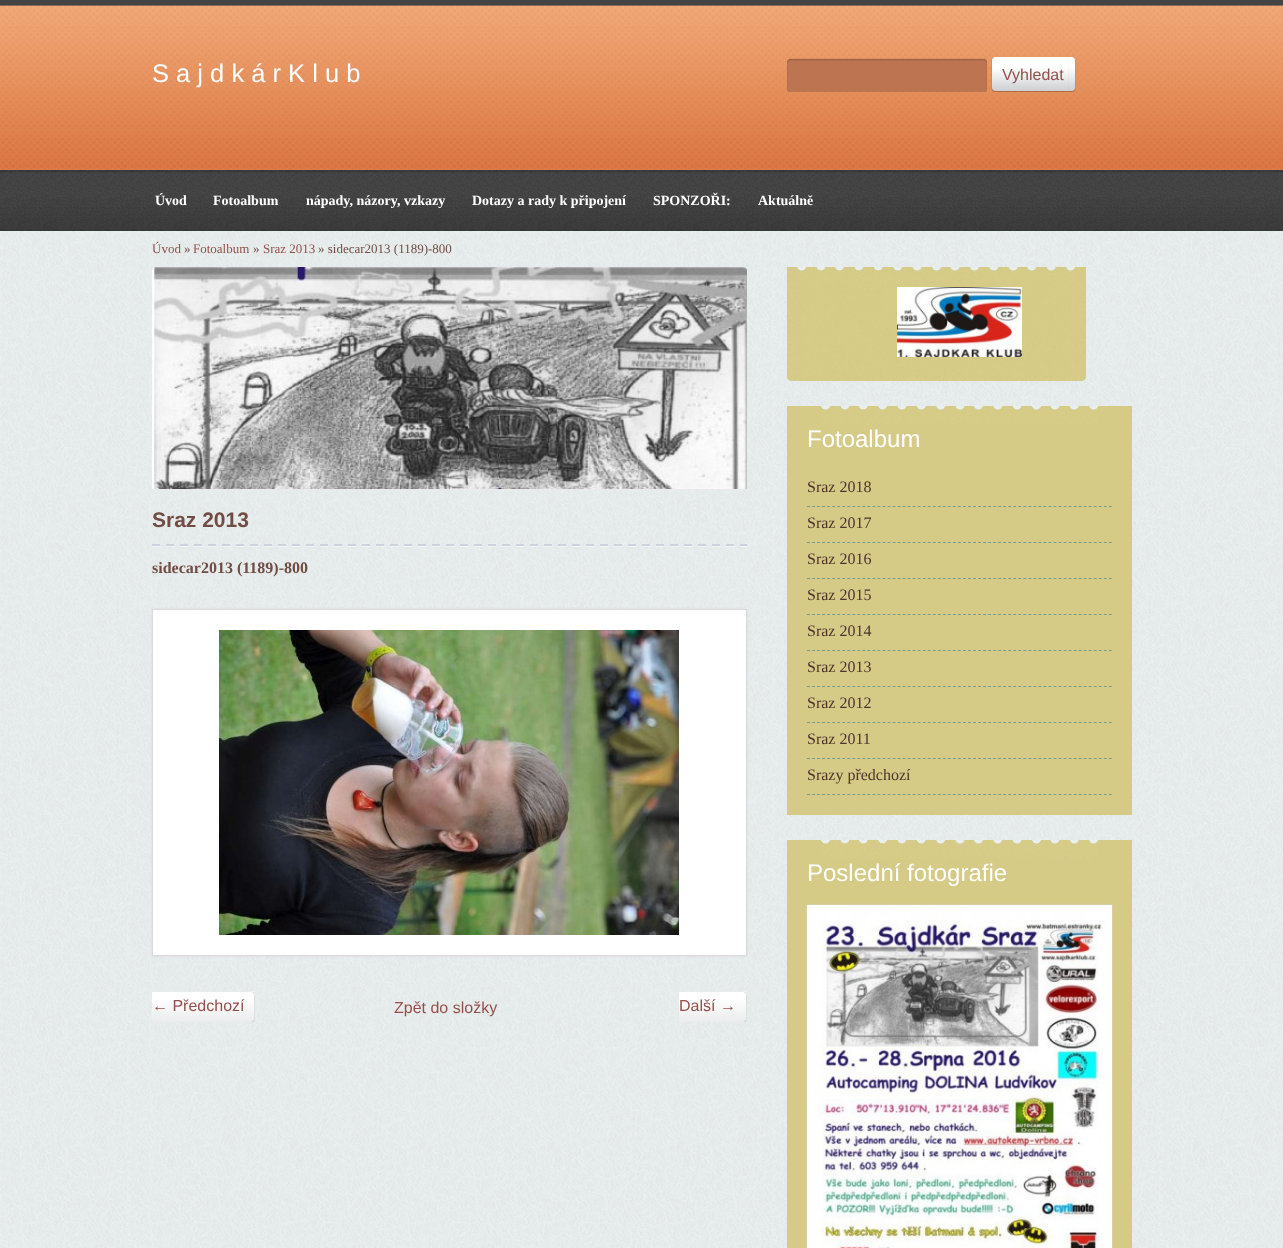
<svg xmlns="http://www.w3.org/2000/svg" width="1283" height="1248">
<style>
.a{font:25.5px Liberation Sans;fill:#fff}
.b{font:bold 21px Liberation Sans;fill:#714c44}
.c{font:bold 16px Liberation Serif;fill:#714c44}
.d{font:16px Liberation Sans;fill:#944f4b}
.e{font:24px Liberation Sans;fill:#fff}
.f{font:16px Liberation Serif;fill:#4c332c}
.g{font:13px Liberation Serif;fill:#944f4b}
.h{font:13px Liberation Serif;fill:#714c44}
.i{font:bold 14px Liberation Serif;fill:#fff}
</style>
<rect width="100%" height="100%" fill="#fff"/>
<image href="1.png" x="0" y="231" width="1283" height="1017"/>
<image href="2.png" x="0" y="0" width="1283" height="170"/>
<image href="3.png" x="152" y="267" width="595" height="222"/>
<image href="4.png" x="152" y="544" width="595" height="3"/>
<path fill="#dbd9de" filter="blur(1px)" d="M152 609h595v347H152z"/>
<path fill="#fff" stroke="#dbd9de" d="M152.5 609.5h594v346H152.5z"/>
<image href="5.png" x="219" y="630" width="460" height="305"/>
<image href="6.png" x="152" y="991" width="103" height="31"/>
<image href="7.png" x="679" y="991" width="68" height="31"/>
<image href="8.png" x="787" y="58" width="200" height="34"/>
<image href="9.png" x="1068" y="57" width="8" height="35"/>
<image href="10.png" x="991" y="57" width="77" height="35"/>
<image href="11.png" x="787" y="267" width="299" height="114"/>
<image href="12.png" x="787" y="267" width="289" height="61"/>
<image href="13.png" x="897" y="287" width="125" height="70"/>
<path fill="#d6ca87" d="M787 406h345v409H787z"/>
<image href="14.png" x="821" y="406" width="277" height="19"/>
<path fill="none" stroke="#759f8c" stroke-dasharray="3 2.03" d="M807 506.5h305"/>
<path fill="none" stroke="#759f8c" stroke-dasharray="3 2.03" d="M807 542.5h305"/>
<path fill="none" stroke="#759f8c" stroke-dasharray="3 2.03" d="M807 578.5h305"/>
<path fill="none" stroke="#759f8c" stroke-dasharray="3 2.03" d="M807 614.5h305"/>
<path fill="none" stroke="#759f8c" stroke-dasharray="3 2.03" d="M807 650.5h305"/>
<path fill="none" stroke="#759f8c" stroke-dasharray="3 2.03" d="M807 686.5h305"/>
<path fill="none" stroke="#759f8c" stroke-dasharray="3 2.03" d="M807 722.5h305"/>
<path fill="none" stroke="#759f8c" stroke-dasharray="3 2.03" d="M807 758.5h305"/>
<path fill="none" stroke="#759f8c" stroke-dasharray="3 2.03" d="M807 794.5h305"/>
<path fill="#d6ca87" d="M787 840h345v408H787z"/>
<image href="14.png" x="821" y="840" width="277" height="19"/>
<path fill="#dbd9de" filter="blur(1px)" d="M807 905h305v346H807z"/>
<image href="15.png" x="807" y="905" width="305" height="343"/>
<image href="16.png" x="0" y="170" width="1283" height="61"/>
<text class="a" x="152" y="82">S a j d k á r K l u b</text>
<text class="b" x="152" y="527">Sraz 2013</text>
<text class="c" x="152" y="573">sidecar2013 (1189)-800</text>
<text class="d" x="152" y="1011">← Předchozí</text>
<text class="d" x="394" y="1013">Zpět do složky</text>
<text class="d" x="679" y="1011">Další →</text>
<text class="d" x="1002" y="80">Vyhledat</text>
<text class="e" x="807" y="447">Fotoalbum</text>
<text class="f" x="807" y="492">Sraz 2018</text>
<text class="f" x="807" y="528">Sraz 2017</text>
<text class="f" x="807" y="564">Sraz 2016</text>
<text class="f" x="807" y="600">Sraz 2015</text>
<text class="f" x="807" y="636">Sraz 2014</text>
<text class="f" x="807" y="672">Sraz 2013</text>
<text class="f" x="807" y="708">Sraz 2012</text>
<text class="f" x="807" y="744">Sraz 2011</text>
<text class="f" x="807" y="780">Srazy předchozí</text>
<text class="e" x="807" y="881">Poslední fotografie</text>
<text class="g" x="152" y="253">Úvod</text>
<text class="h" x="184" y="253">»</text>
<text class="g" x="193" y="253">Fotoalbum</text>
<text class="h" x="253" y="253">»</text>
<text class="g" x="263" y="253">Sraz 2013</text>
<text class="h" x="318" y="253">» sidecar2013 (1189)-800</text>
<text class="i" x="155" y="205">Úvod</text>
<text class="i" x="213" y="205">Fotoalbum</text>
<text class="i" x="306" y="205">nápady, názory, vzkazy</text>
<text class="i" x="472" y="205">Dotazy a rady k připojení</text>
<text class="i" x="653" y="205">SPONZOŘI:</text>
<text class="i" x="758" y="205">Aktuálně</text>
</svg>
